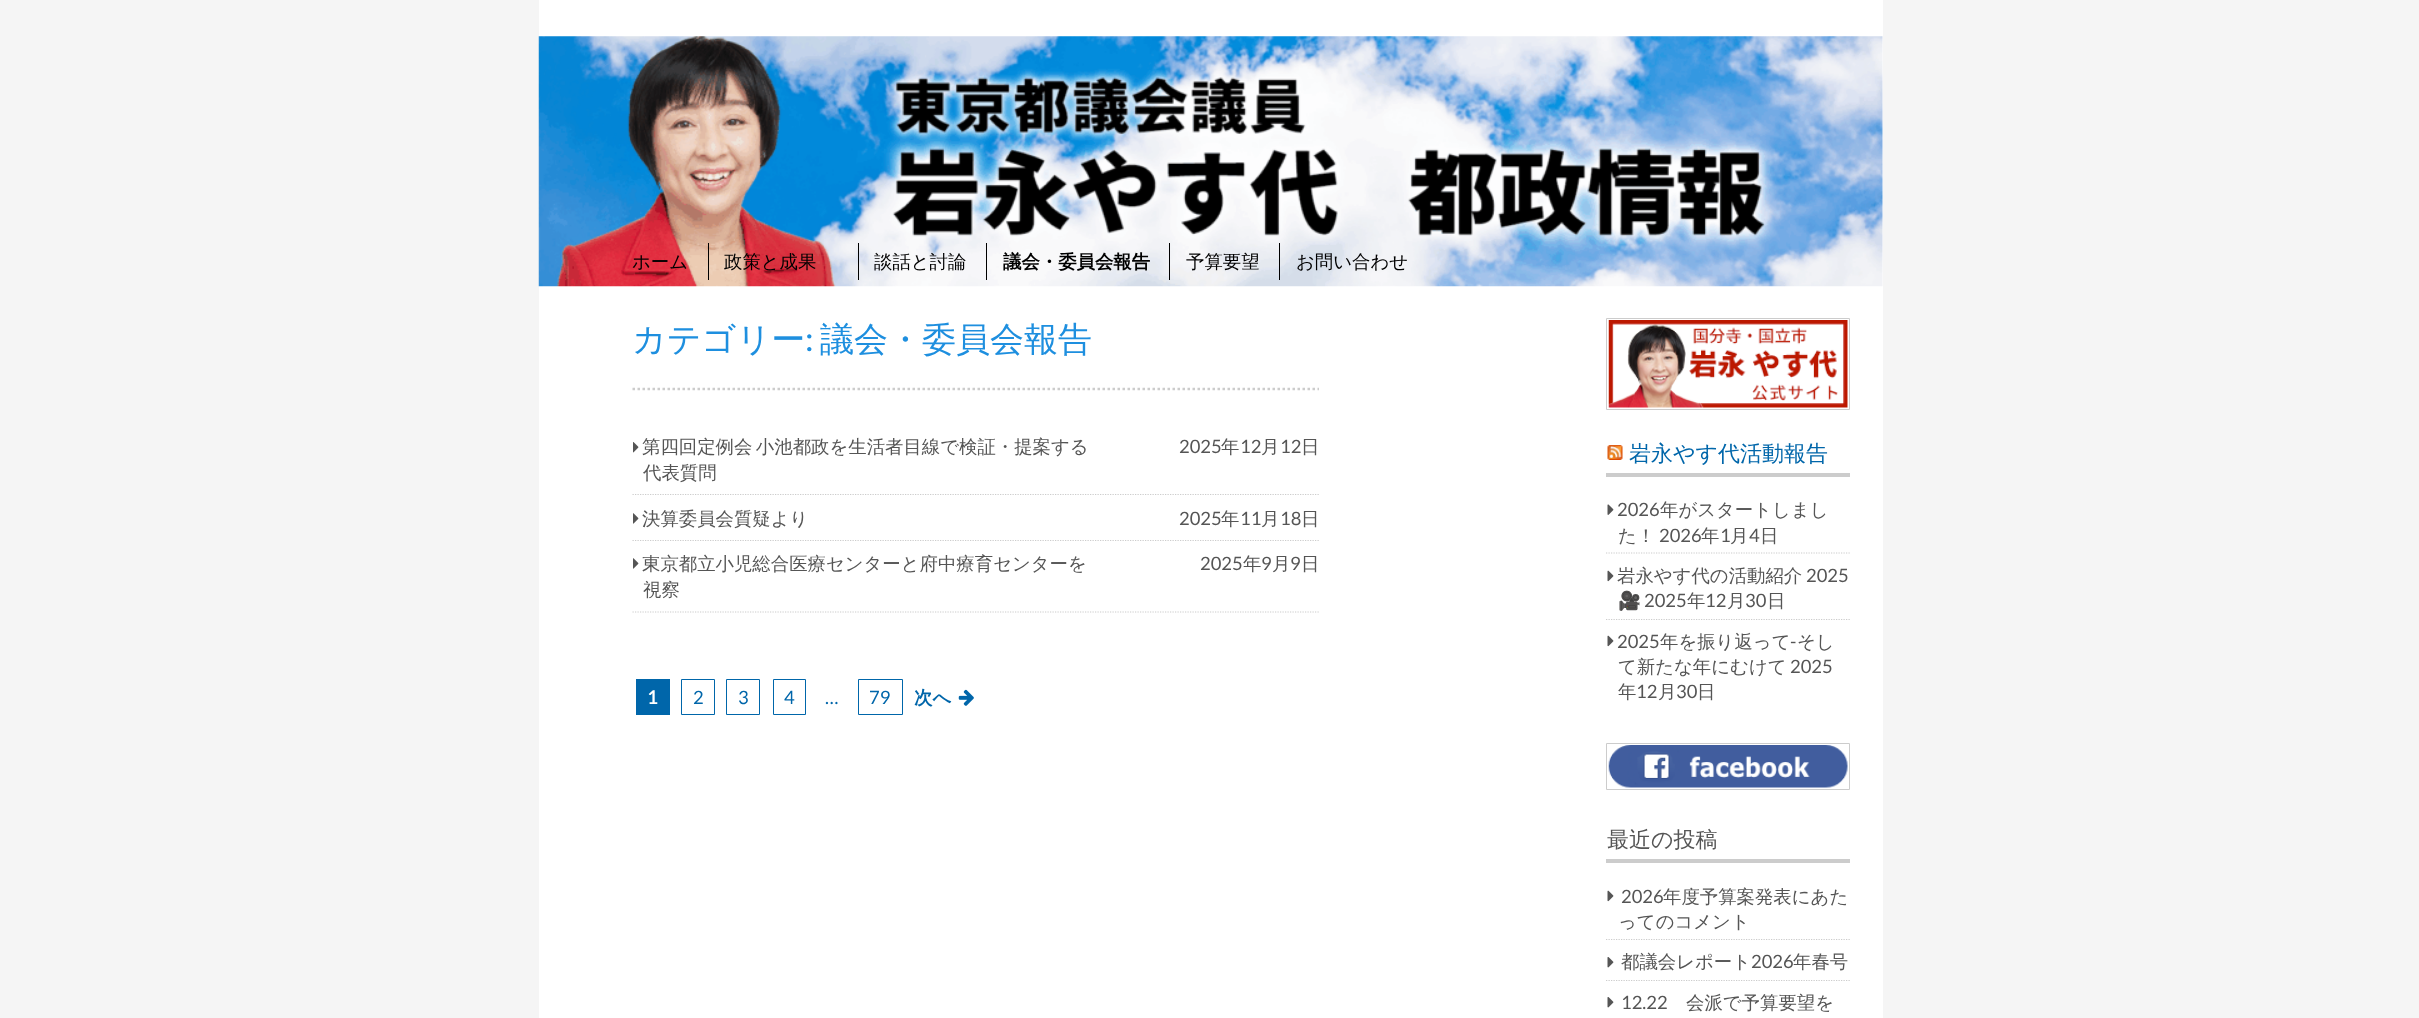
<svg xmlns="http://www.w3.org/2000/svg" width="2419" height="1018">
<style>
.a{font:500 18.4px WenQuanYi Zen Hei;fill:#000}
.b{font:bold 18.4px WenQuanYi Zen Hei;fill:#000}
.c{font:500 34px WenQuanYi Zen Hei;fill:#1e8fdf}
.d{font:34px Lato;fill:#1e8fdf}
.e{font:500 18.4px WenQuanYi Zen Hei;fill:#555}
.f{font:18.4px Lato;fill:#555}
.g{font:bold 18.4px Lato;fill:#fff}
.h{font:18.4px Lato;fill:#06a}
.i{font:bold 18.4px WenQuanYi Zen Hei;fill:#06a}
.j{font:500 22px WenQuanYi Zen Hei;fill:#06a}
.k{font:18.4px Noto Color Emoji;fill:#555}
.l{font:500 22px WenQuanYi Zen Hei;fill:#555}
</style>
<defs>
<clipPath id="clip1"><path d="M1606 875h244v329H1606z"/></clipPath>
</defs>
<rect width="100%" height="100%" fill="#f5f5f5"/>
<path fill="#fff" d="M539 0h1344v1018H539z"/>
<image href="1.png" x="538" y="36" width="1345" height="251"/>
<path fill="#000" d="M708 243h1v37H708z"/>
<path fill="#000" d="M858 243h1v37H858z"/>
<path fill="#000" d="M986 243h1v37H986z"/>
<path fill="#000" d="M1169 243h1v37H1169z"/>
<path fill="#000" d="M1279 243h1v37H1279z"/>
<path fill="none" stroke="#ccc" stroke-width="2.5" stroke-dasharray="2.5 2.5" d="M632.5 389h686.5"/>
<path fill="none" stroke="#ccc" stroke-width="1.2" stroke-dasharray="1.25 1.25" d="M632.5 494.5h686.5"/>
<image href="2.png" x="633" y="442" width="6" height="11"/>
<path fill="none" stroke="#ccc" stroke-width="1.2" stroke-dasharray="1.25 1.25" d="M632.5 540.5h686.5"/>
<image href="3.png" x="633" y="513" width="6" height="11"/>
<path fill="none" stroke="#ccc" stroke-width="1.2" stroke-dasharray="1.25 1.25" d="M632.5 612h686.5"/>
<image href="3.png" x="633" y="558" width="6" height="11"/>
<path fill="#06a" d="M636 679h34v36H636z"/>
<path fill="none" stroke="#06a" d="M681.5 679.5h33v35H681.5z"/>
<path fill="none" stroke="#06a" d="M726.5 679.5h33v35H726.5z"/>
<path fill="none" stroke="#06a" d="M773.5 679.5h32v35H773.5z"/>
<path fill="none" stroke="#06a" d="M858.5 679.5h44v35H858.5z"/>
<image href="4.png" x="958" y="689" width="16" height="17"/>
<path fill="none" stroke="#ccc" d="M1606.5 318.5h243v91H1606.5z"/>
<image href="5.png" x="1608" y="320" width="240" height="88"/>
<path fill="#ccc" d="M1606 473h244v4H1606z"/>
<image href="6.png" x="1607" y="445" width="16" height="15"/>
<image href="7.png" x="1607" y="504" width="7" height="11"/>
<path fill="none" stroke="#ccc" stroke-width="1.2" stroke-dasharray="1.25 1.25" d="M1606 553h244"/>
<image href="8.png" x="1607" y="570" width="7" height="12"/>
<path fill="none" stroke="#ccc" stroke-width="1.2" stroke-dasharray="1.25 1.25" d="M1606 619.5h244"/>
<image href="8.png" x="1607" y="635" width="7" height="12"/>
<path fill="none" stroke="#ccc" d="M1606.5 743.5h243v46H1606.5z"/>
<image href="9.png" x="1608" y="745" width="240" height="43"/>
<path fill="#ccc" d="M1606 859h244v4H1606z"/>
<g clip-path="url(#clip1)">
<path fill="none" stroke="#ccc" stroke-width="1.2" stroke-dasharray="1.25 1.25" d="M1606 874.5h244"/>
</g>
<image href="8.png" x="1607" y="890" width="7" height="12"/>
<path fill="none" stroke="#ccc" stroke-width="1.2" stroke-dasharray="1.25 1.25" d="M1606 939.5h244"/>
<image href="10.png" x="1607" y="957" width="7" height="11"/>
<path fill="none" stroke="#ccc" stroke-width="1.2" stroke-dasharray="1.25 1.25" d="M1606 980.5h244"/>
<image href="10.png" x="1607" y="997" width="7" height="11"/>
<text class="a" x="632" y="268">ホーム</text>
<text class="a" x="724" y="268">政策と成果</text>
<text class="a" x="874" y="268">談話と討論</text>
<text class="b" x="1003" y="268">議会・委員会報告</text>
<text class="a" x="1186" y="268">予算要望</text>
<text class="a" x="1296" y="268">お問い合わせ</text>
<text class="c" x="632" y="351">カテゴリー</text>
<text class="d" x="805" y="351">:</text>
<text class="c" x="820" y="351">議会・委員会報告</text>
<text class="e" x="642" y="453" word-spacing="-2">第四回定例会 小池都政を生活者目線で検証・提案する</text>
<text class="e" x="643" y="479">代表質問</text>
<text class="f" x="1179" y="453">2025</text>
<text class="e" x="1221" y="453">年</text>
<text class="f" x="1240" y="453">12</text>
<text class="e" x="1261" y="453">月</text>
<text class="f" x="1280" y="453">12</text>
<text class="e" x="1301" y="453">日</text>
<text class="e" x="642" y="525">決算委員会質疑より</text>
<text class="f" x="1179" y="525">2025</text>
<text class="e" x="1221" y="525">年</text>
<text class="f" x="1240" y="525">11</text>
<text class="e" x="1261" y="525">月</text>
<text class="f" x="1280" y="525">18</text>
<text class="e" x="1301" y="525">日</text>
<text class="e" x="642" y="570">東京都立小児総合医療センターと府中療育センターを</text>
<text class="e" x="643" y="596">視察</text>
<text class="f" x="1200" y="570">2025</text>
<text class="e" x="1243" y="570">年</text>
<text class="f" x="1261" y="570">9</text>
<text class="e" x="1272" y="570">月</text>
<text class="f" x="1290" y="570">9</text>
<text class="e" x="1301" y="570">日</text>
<text class="g" x="647" y="704">1</text>
<text class="h" x="693" y="704">2</text>
<text class="h" x="738" y="704">3</text>
<text class="h" x="784" y="704">4</text>
<text class="h" x="825" y="704">…</text>
<text class="h" x="869" y="704">79</text>
<text class="i" x="914" y="704">次へ</text>
<text class="j" x="1629" y="461">岩永やす代活動報告</text>
<text class="f" x="1617" y="516">2026</text>
<text class="e" x="1660" y="516">年がスタートしまし</text>
<text class="e" x="1618" y="542">た！</text>
<text class="f" x="1659" y="542">2026</text>
<text class="e" x="1701" y="542">年</text>
<text class="f" x="1720" y="542">1</text>
<text class="e" x="1730" y="542">月</text>
<text class="f" x="1749" y="542">4</text>
<text class="e" x="1760" y="542">日</text>
<text class="e" x="1617" y="582">岩永やす代の活動紹介</text>
<text class="f" x="1806" y="582">2025</text>
<text class="k" x="1618" y="607">🎥</text>
<text class="f" x="1644" y="607">2025</text>
<text class="e" x="1687" y="607">年</text>
<text class="f" x="1705" y="607">12</text>
<text class="e" x="1727" y="607">月</text>
<text class="f" x="1745" y="607">30</text>
<text class="e" x="1767" y="607">日</text>
<text class="f" x="1617" y="648">2025</text>
<text class="e" x="1660" y="648">年を振り返って</text>
<text class="f" x="1790" y="648">-</text>
<text class="e" x="1797" y="648">そし</text>
<text class="e" x="1618" y="673">て新たな年にむけて</text>
<text class="f" x="1790" y="673">2025</text>
<text class="e" x="1618" y="698">年</text>
<text class="f" x="1636" y="698">12</text>
<text class="e" x="1658" y="698">月</text>
<text class="f" x="1676" y="698">30</text>
<text class="e" x="1697" y="698">日</text>
<text class="l" x="1607" y="847">最近の投稿</text>
<text class="f" x="1621" y="903">2026</text>
<text class="e" x="1663" y="903">年度予算案発表にあた</text>
<text class="e" x="1618" y="928">ってのコメント</text>
<text class="e" x="1621" y="968">都議会レポート</text>
<text class="f" x="1751" y="968">2026</text>
<text class="e" x="1793" y="968">年春号</text>
<text class="f" x="1621" y="1009">12.22</text>
<text class="e" x="1686" y="1009">会派で予算要望を</text>
</svg>
